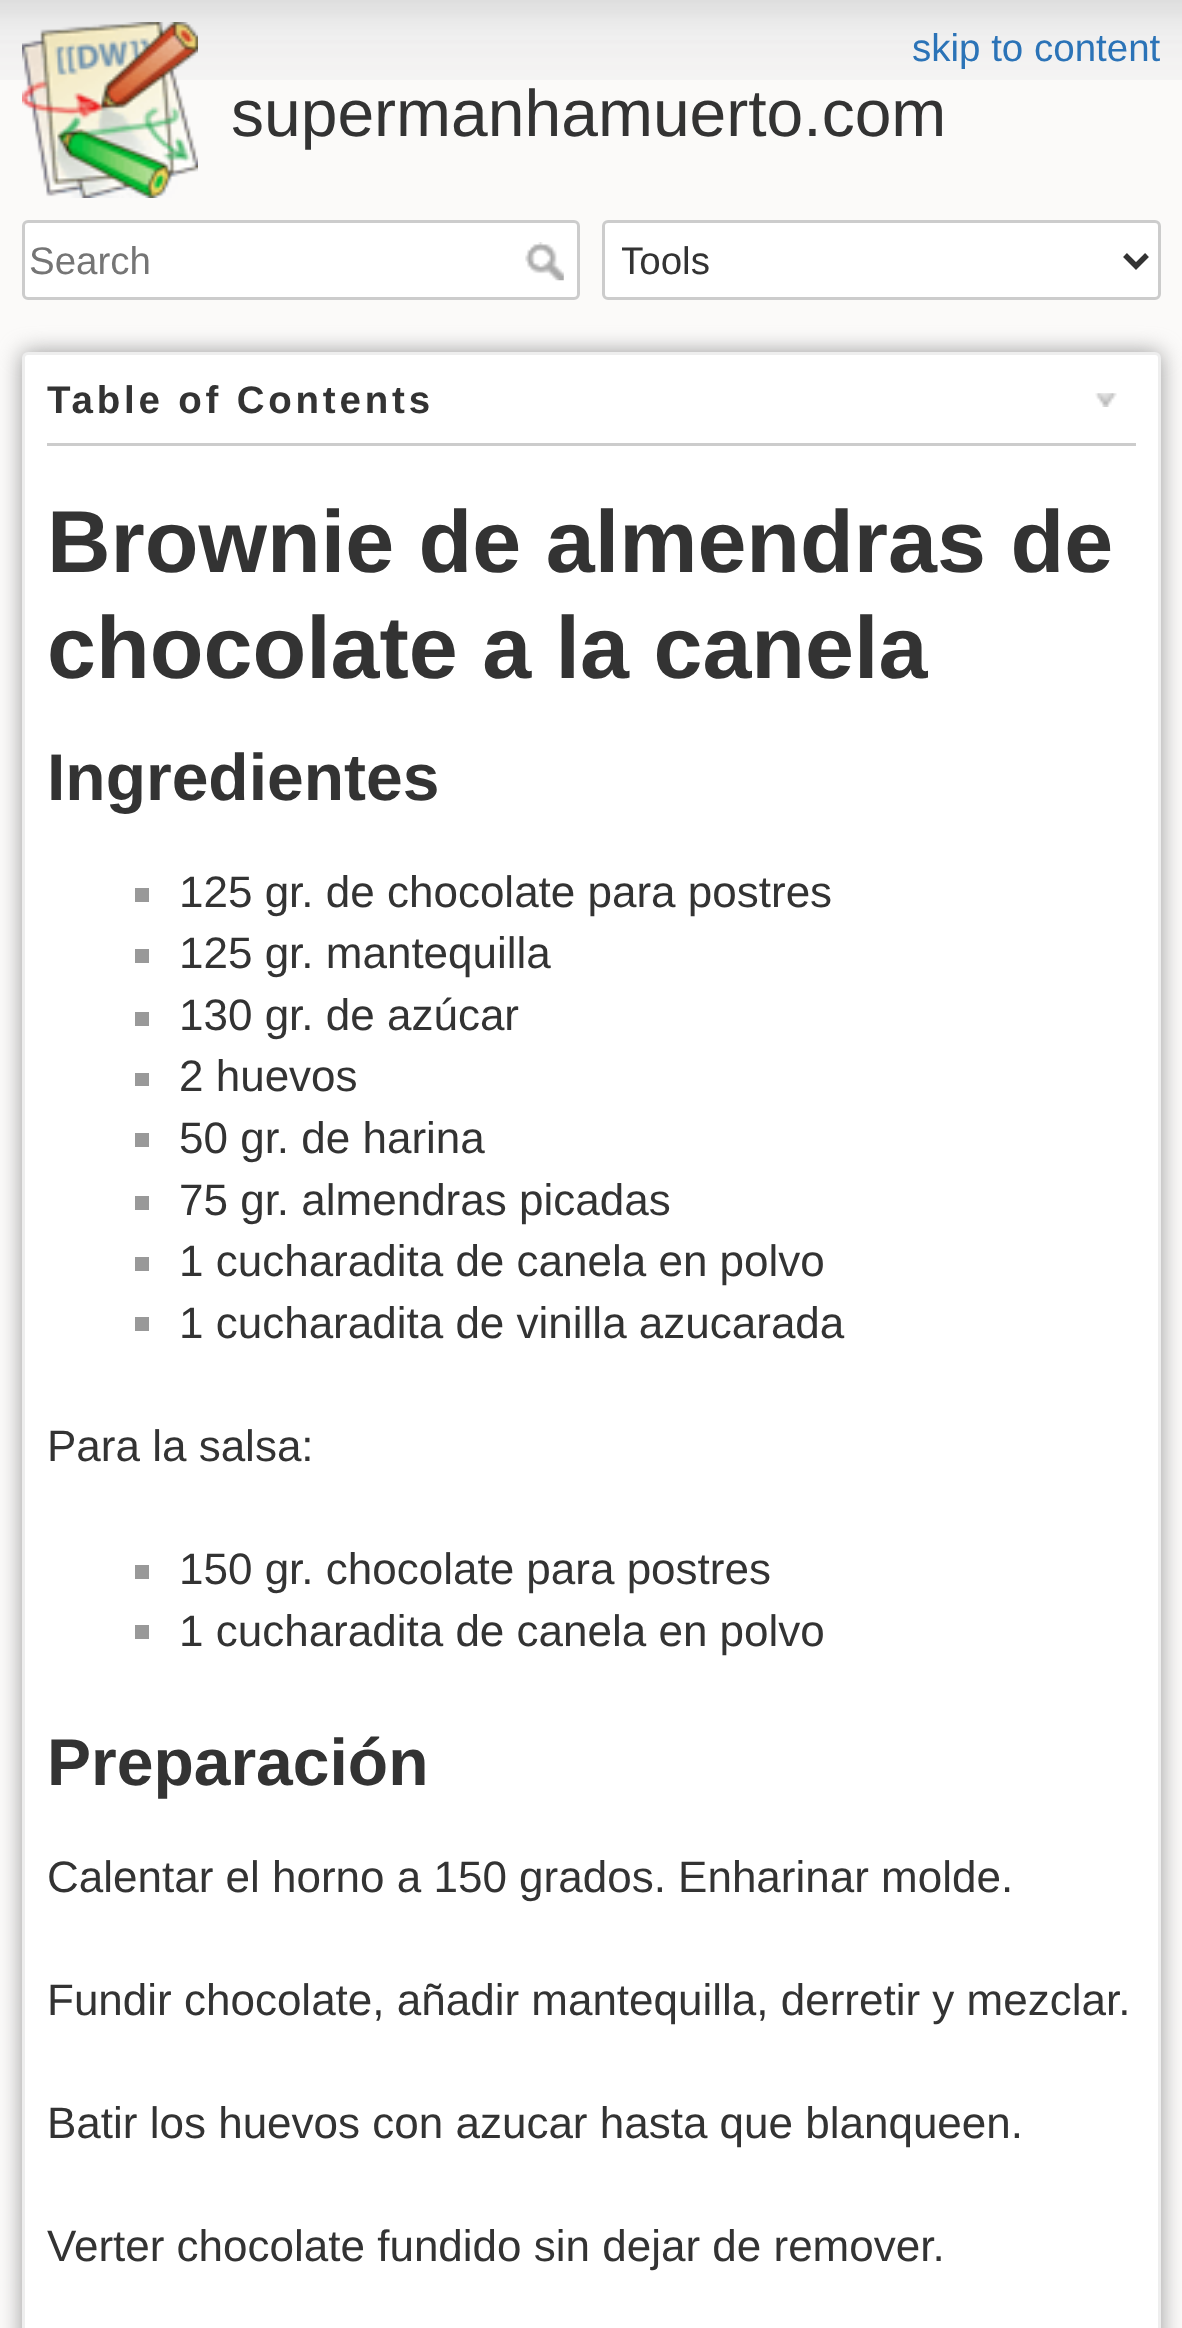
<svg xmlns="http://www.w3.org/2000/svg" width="1182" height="2328">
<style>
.a{font:38.5px Liberation Sans;fill:#2b73b7}
.b{font:66px Liberation Sans;fill:#333}
.c{font:38.5px Liberation Sans;fill:#757575}
.d{font:38.5px Liberation Sans;fill:#333}
.e{font:bold 38.5px Liberation Sans;letter-spacing:3.8px;fill:#333}
.f{font:bold 88px Liberation Sans;fill:#333}
.g{font:bold 66px Liberation Sans;fill:#333}
.h{font:44px Liberation Sans;fill:#333}
</style>
<defs>
<clipPath id="clip1"><path d="M622 237h489v49H622z"/></clipPath>
</defs>
<rect width="100%" height="100%" fill="#fbfaf9"/>
<image href="1.png" x="0" y="0" width="1182" height="80"/>
<image href="2.png" x="22" y="22" width="176" height="176"/>
<rect fill="#fff" stroke="#ccc" stroke-width="3" x="23.5" y="221.5" width="555" height="77" rx="4.5"/>
<image href="3.png" x="525" y="242" width="39" height="39"/>
<rect fill="#fff" stroke="#ccc" stroke-width="3" x="603.5" y="221.5" width="556" height="77" rx="4.5"/>
<path fill="none" stroke="#333" stroke-width="5.5" d="M1125 255l11 11l11-11"/>
<rect fill="#999" filter="blur(11px)" x="22" y="352" width="1139" height="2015" rx="6"/>
<rect fill="#fff" stroke="#eee" stroke-width="3" x="23.5" y="353.5" width="1136" height="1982" rx="4.5"/>
<path fill="#ccc" d="M47 443h1089v3H47z"/>
<image href="4.png" x="1095" y="393" width="22" height="14"/>
<path fill="#999" d="M135 888h14v14H135z"/>
<path fill="#999" d="M135 949h14v14H135z"/>
<path fill="#999" d="M135 1012h14v14H135z"/>
<path fill="#999" d="M135 1073h14v13H135z"/>
<path fill="#999" d="M135 1133h14v14H135z"/>
<path fill="#999" d="M135 1196h14v14H135z"/>
<path fill="#999" d="M135 1257h14v14H135z"/>
<path fill="#999" d="M135 1317h14v14H135z"/>
<path fill="#999" d="M135 1565h14v14H135z"/>
<path fill="#999" d="M135 1625h14v14H135z"/>
<text class="a" x="912" y="61">skip to content</text>
<text class="b" x="231" y="136">supermanhamuerto.com</text>
<text class="c" x="29" y="274">Search</text>
<g clip-path="url(#clip1)">
<text class="d" x="620" y="274">Tools</text>
</g>
<text class="e" x="47" y="413">Table of Contents</text>
<text class="f" x="47" y="572">Brownie de almendras de</text>
<text class="f" x="47" y="678">chocolate a la canela</text>
<text class="g" x="47" y="800">Ingredientes</text>
<text class="h" x="179" y="907">125 gr. de chocolate para postres</text>
<text class="h" x="179" y="968">125 gr. mantequilla</text>
<text class="h" x="179" y="1030">130 gr. de azúcar</text>
<text class="h" x="179" y="1091">2 huevos</text>
<text class="h" x="179" y="1153">50 gr. de harina</text>
<text class="h" x="179" y="1215">75 gr. almendras picadas</text>
<text class="h" x="179" y="1276">1 cucharadita de canela en polvo</text>
<text class="h" x="179" y="1338">1 cucharadita de vinilla azucarada</text>
<text class="h" x="47" y="1461">Para la salsa:</text>
<text class="h" x="179" y="1584">150 gr. chocolate para postres</text>
<text class="h" x="179" y="1646">1 cucharadita de canela en polvo</text>
<text class="g" x="47" y="1785">Preparación</text>
<text class="h" x="47" y="1892">Calentar el horno a 150 grados. Enharinar molde.</text>
<text class="h" x="47" y="2015">Fundir chocolate, añadir mantequilla, derretir y mezclar.</text>
<text class="h" x="47" y="2138">Batir los huevos con azucar hasta que blanqueen.</text>
<text class="h" x="47" y="2261">Verter chocolate fundido sin dejar de remover.</text>
</svg>
